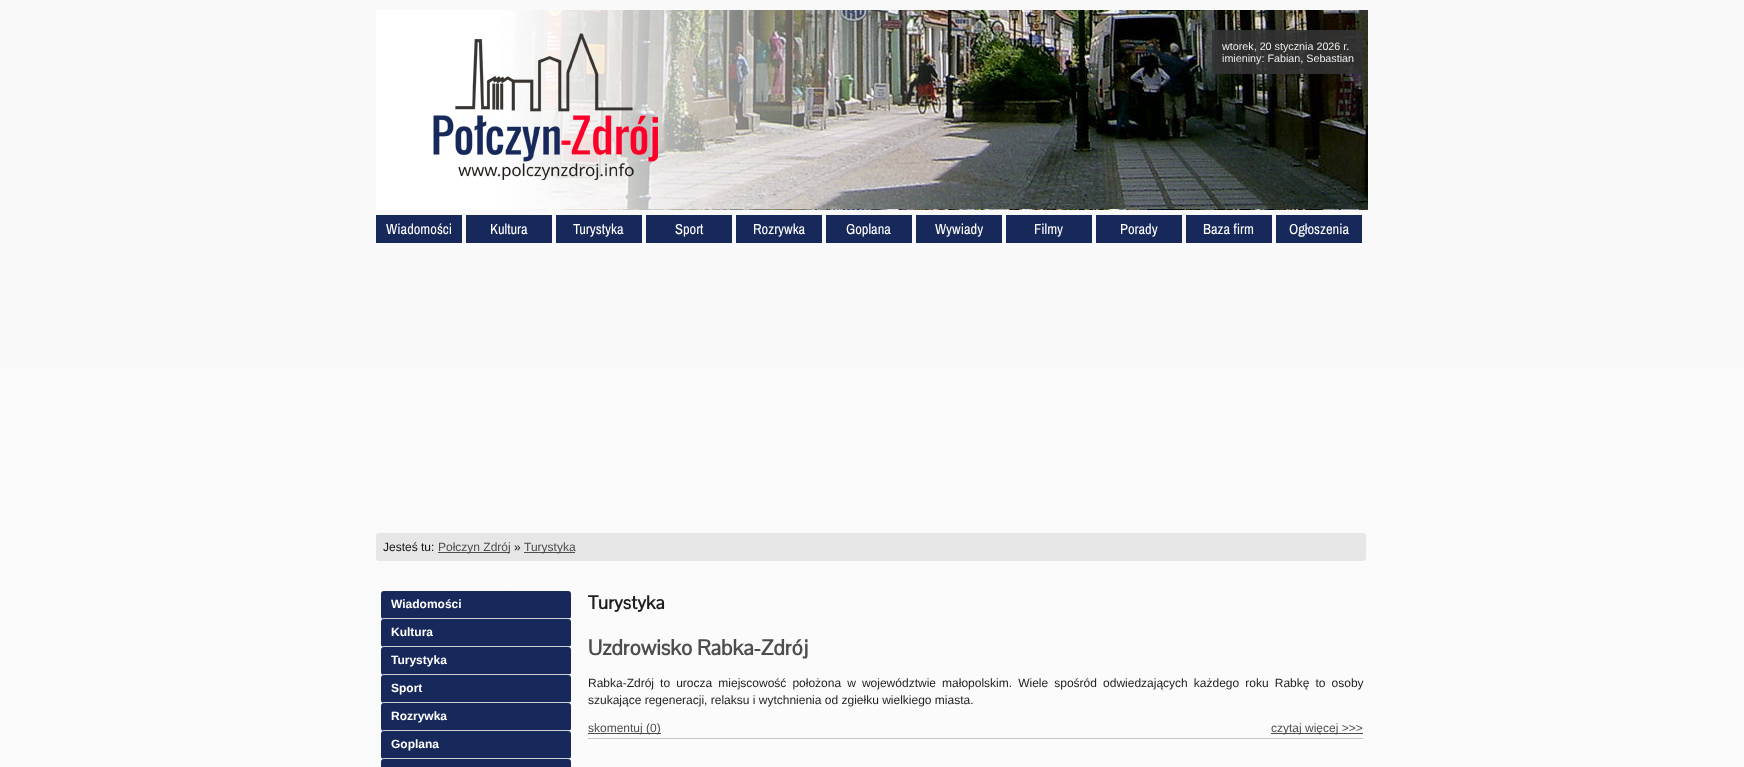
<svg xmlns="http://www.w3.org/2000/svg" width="1744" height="767">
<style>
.a{font:10.75px Liberation Sans;fill:#eaeaea}
.b{font:14.5px Archivo Narrow;fill:#fff}
.c{font:12px Liberation Sans;fill:#111}
.d{font:12px Liberation Sans;fill:#4d4d4d}
.e{font:bold 12px Liberation Sans;fill:#fff}
.f{font:bold 18.5px Pontano Sans;fill:#1d1d1d}
.g{font:bold 21.25px Pontano Sans;fill:#4d4d4d}
.h{font:12px Liberation Sans;fill:#1d1d1d}
</style>
<defs>
<linearGradient id="g1" gradientUnits="userSpaceOnUse" x1="0" y1="0" x2="0" y2="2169"><stop offset="0.05" stop-color="#f9f9f9"/><stop offset="1" stop-color="#fff"/></linearGradient>
</defs>
<rect width="100%" height="100%" fill="#fff"/>
<path fill="url(#g1)" d="M0 0h1744v767H0z"/>
<image href="1.png" x="376" y="10" width="992" height="200"/>
<image href="2.png" x="433" y="33" width="225" height="147"/>
<path fill="#333333e6" d="M1212 30h151v44H1212z"/>
<path fill="#17285a" d="M376 215h86v28H376z"/>
<path fill="#17285a" d="M466 215h86v28H466z"/>
<path fill="#17285a" d="M556 215h86v28H556z"/>
<path fill="#17285a" d="M646 215h86v28H646z"/>
<path fill="#17285a" d="M736 215h86v28H736z"/>
<path fill="#17285a" d="M826 215h86v28H826z"/>
<path fill="#17285a" d="M916 215h86v28H916z"/>
<path fill="#17285a" d="M1006 215h86v28H1006z"/>
<path fill="#17285a" d="M1096 215h86v28H1096z"/>
<path fill="#17285a" d="M1186 215h86v28H1186z"/>
<path fill="#17285a" d="M1276 215h86v28H1276z"/>
<rect fill="#e6e6e6" x="376" y="533" width="990" height="28" rx="3"/>
<path fill="#4d4d4d" d="M438 552h72v1H438z"/>
<path fill="#4d4d4d" d="M524 552h51v1H524z"/>
<rect fill="#17285a" x="381" y="591" width="190" height="28" rx="3"/>
<path fill="#d2d2d2" d="M383 618h187v1H383z"/>
<rect fill="#17285a" x="381" y="619" width="190" height="28" rx="3"/>
<path fill="#d2d2d2" d="M383 646h187v1H383z"/>
<rect fill="#17285a" x="381" y="647" width="190" height="28" rx="3"/>
<path fill="#d2d2d2" d="M383 674h187v1H383z"/>
<rect fill="#17285a" x="381" y="675" width="190" height="28" rx="3"/>
<path fill="#d2d2d2" d="M383 702h187v1H383z"/>
<rect fill="#17285a" x="381" y="703" width="190" height="28" rx="3"/>
<path fill="#d2d2d2" d="M383 730h187v1H383z"/>
<rect fill="#17285a" x="381" y="731" width="190" height="28" rx="3"/>
<path fill="#d2d2d2" d="M383 758h187v1H383z"/>
<rect fill="#17285a" x="381" y="759" width="190" height="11" rx="3"/>
<path fill="#c5c5c5" d="M588 738h775v1H588z"/>
<path fill="#4d4d4d" d="M588 733h73v1H588z"/>
<path fill="#4d4d4d" d="M1271 733h92v1H1271z"/>
<text class="a" x="1222" y="50">wtorek, 20 stycznia 2026 r.</text>
<text class="a" x="1222" y="62">imieniny: Fabian, Sebastian</text>
<text class="b" x="386" y="234">Wiadomości</text>
<text class="b" x="490" y="234">Kultura</text>
<text class="b" x="573" y="234">Turystyka</text>
<text class="b" x="675" y="234">Sport</text>
<text class="b" x="753" y="234">Rozrywka</text>
<text class="b" x="846" y="234">Goplana</text>
<text class="b" x="935" y="234">Wywiady</text>
<text class="b" x="1034" y="234">Filmy</text>
<text class="b" x="1120" y="234">Porady</text>
<text class="b" x="1203" y="234">Baza firm</text>
<text class="b" x="1289" y="234">Ogłoszenia</text>
<text class="c" x="383" y="551">Jesteś tu:</text>
<text class="d" x="438" y="551">Połczyn Zdrój</text>
<text class="c" x="514" y="551">»</text>
<text class="d" x="524" y="551">Turystyka</text>
<text class="e" x="391" y="608">Wiadomości</text>
<text class="e" x="391" y="636">Kultura</text>
<text class="e" x="391" y="664">Turystyka</text>
<text class="e" x="391" y="692">Sport</text>
<text class="e" x="391" y="720">Rozrywka</text>
<text class="e" x="391" y="748">Goplana</text>
<text class="f" x="588" y="609">Turystyka</text>
<text class="g" x="588" y="655">Uzdrowisko Rabka-Zdrój</text>
<text class="h" x="588" y="687" word-spacing="2.75">Rabka-Zdrój to urocza miejscowość położona w województwie małopolskim. Wiele spośród odwiedzających każdego roku Rabkę to osoby</text>
<text class="h" x="588" y="704">szukające regeneracji, relaksu i wytchnienia od zgiełku wielkiego miasta.</text>
<text class="d" x="588" y="732">skomentuj (0)</text>
<text class="d" x="1271" y="732">czytaj więcej &gt;&gt;&gt;</text>
</svg>
